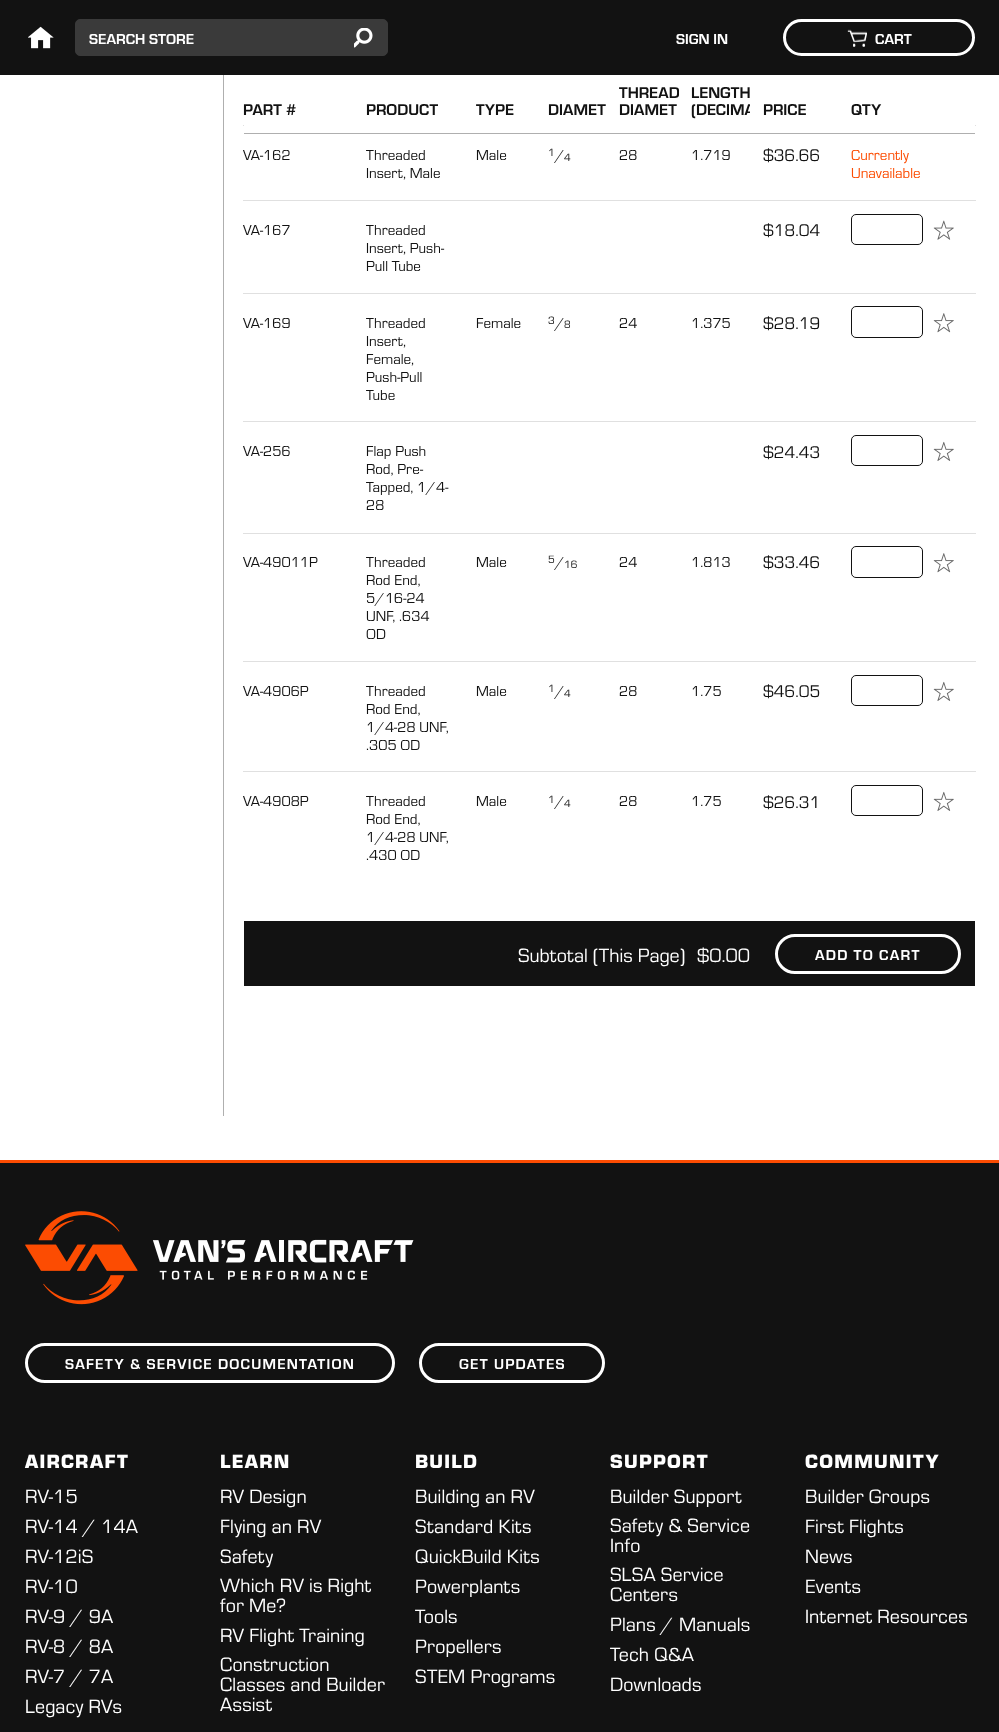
<svg xmlns="http://www.w3.org/2000/svg" width="999" height="1732">
<style>
.a{font:bold 15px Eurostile;fill:#fff}
.b{font:bold 16.25px Eurostile;fill:#121212}
.c{font:15px Eurostile;fill:#121212}
.d{font:11px Eurostile;fill:#121212}
.e{font:17.5px Eurostile;fill:#121212}
.f{font:15px Eurostile;fill:#fc4c02}
.g{font:20px Eurostile;fill:#fff}
.h{font:bold 15px Eurostile;letter-spacing:1.25px;fill:#fff}
.i{font:900 20px Eurostile;letter-spacing:1.25px;fill:#fff}
.j{font:20px Eurostile;letter-spacing:0.1px;fill:#fff}
</style>
<rect width="100%" height="100%" fill="#fff"/>
<path fill="#121212" d="M0 0h999v75H0z"/>
<image href="1.png" x="28" y="26" width="26" height="23"/>
<rect fill="#3a3a3a" stroke="#3a3a3a" x="75.5" y="19.5" width="312" height="36" rx="4.5"/>
<image href="2.png" x="354" y="28" width="19" height="20"/>
<rect fill="none" stroke="#fff" stroke-width="3" x="784.5" y="20.5" width="189" height="34" rx="17"/>
<image href="3.png" x="847" y="29" width="20" height="18"/>
<path fill="#afafaf" d="M223 75h1v1041H223z"/>
<path fill="#afafaf" d="M244 133h731v1H244z"/>
<path fill="#e0e0e0" d="M243 125h1v1H243z"/>
<path fill="#e0e0e0" d="M975 125h1v1H975z"/>
<path fill="#e0e0e0" d="M243 200h733v1H243z"/>
<rect fill="none" stroke="#121212" x="851.5" y="214.5" width="71" height="30" rx="4.5"/>
<image href="4.png" x="933" y="220" width="21" height="20"/>
<path fill="#e0e0e0" d="M243 293h733v1H243z"/>
<rect fill="none" stroke="#121212" x="851.5" y="306.5" width="71" height="31" rx="4.5"/>
<image href="5.png" x="933" y="313" width="21" height="20"/>
<path fill="#e0e0e0" d="M243 421h733v1H243z"/>
<rect fill="none" stroke="#121212" x="851.5" y="435.5" width="71" height="30" rx="4.5"/>
<image href="6.png" x="933" y="441" width="21" height="20"/>
<path fill="#e0e0e0" d="M243 533h733v1H243z"/>
<rect fill="none" stroke="#121212" x="851.5" y="546.5" width="71" height="31" rx="4.5"/>
<image href="5.png" x="933" y="553" width="21" height="20"/>
<path fill="#e0e0e0" d="M243 661h733v1H243z"/>
<rect fill="none" stroke="#121212" x="851.5" y="675.5" width="71" height="30" rx="4.5"/>
<image href="6.png" x="933" y="681" width="21" height="20"/>
<path fill="#e0e0e0" d="M243 771h733v1H243z"/>
<rect fill="none" stroke="#121212" x="851.5" y="785.5" width="71" height="30" rx="4.5"/>
<image href="6.png" x="933" y="791" width="21" height="20"/>
<path fill="#121212" d="M244 921h731v65H244z"/>
<rect fill="none" stroke="#fff" stroke-width="3" x="776.5" y="935.5" width="183" height="37" rx="18.5"/>
<path fill="#121212" d="M0 1163h999v569H0z"/>
<path fill="#fc4c02" d="M0 1160h999v3H0z"/>
<image href="7.png" x="25" y="1211" width="389" height="94"/>
<rect fill="none" stroke="#fff" stroke-width="3" x="26.5" y="1344.5" width="367" height="37" rx="18.5"/>
<rect fill="none" stroke="#fff" stroke-width="3" x="420.5" y="1344.5" width="183" height="37" rx="18.5"/>
<text class="a" x="89" y="44">SEARCH STORE</text>
<text class="a" x="676" y="44">SIGN IN</text>
<text class="a" x="875" y="44">CART</text>
<text class="b" x="243" y="115">PART #</text>
<text class="b" x="366" y="115">PRODUCT</text>
<text class="b" x="476" y="115">TYPE</text>
<text class="b" x="548" y="115">DIAMET</text>
<text class="b" x="619" y="98">THREAD</text>
<text class="b" x="619" y="115">DIAMET</text>
<path fill="#fff" d="M679 88h1v9H679z"/>
<text class="b" x="691" y="98">LENGTH</text>
<text class="b" x="691" y="115">(DECIMA</text>
<path fill="#fff" d="M750 104h6v11H750z"/>
<text class="b" x="763" y="115">PRICE</text>
<text class="b" x="851" y="115">QTY</text>
<text class="c" x="243" y="160">VA-162</text>
<text class="c" x="366" y="160">Threaded</text>
<text class="c" x="366" y="178">Insert, Male</text>
<text class="c" x="476" y="160">Male</text>
<text class="d" x="548" y="156">1</text>
<text class="c" x="555" y="160">/</text>
<text class="d" x="564" y="161">4</text>
<text class="c" x="619" y="160">28</text>
<text class="c" x="691" y="160">1.719</text>
<text class="e" x="763" y="161">$36.66</text>
<text class="f" x="851" y="160">Currently</text>
<text class="f" x="851" y="178">Unavailable</text>
<text class="c" x="243" y="235">VA-167</text>
<text class="c" x="366" y="235">Threaded</text>
<text class="c" x="366" y="253">Insert, Push-</text>
<text class="c" x="366" y="271">Pull Tube</text>
<text class="e" x="763" y="236">$18.04</text>
<text class="c" x="243" y="328">VA-169</text>
<text class="c" x="366" y="328">Threaded</text>
<text class="c" x="366" y="346">Insert,</text>
<text class="c" x="366" y="364">Female,</text>
<text class="c" x="366" y="382">Push-Pull</text>
<text class="c" x="366" y="400">Tube</text>
<text class="c" x="476" y="328">Female</text>
<text class="d" x="548" y="324">3</text>
<text class="c" x="555" y="328">/</text>
<text class="d" x="564" y="328">8</text>
<text class="c" x="619" y="328">24</text>
<text class="c" x="691" y="328">1.375</text>
<text class="e" x="763" y="329">$28.19</text>
<text class="c" x="243" y="456">VA-256</text>
<text class="c" x="366" y="456">Flap Push</text>
<text class="c" x="366" y="474">Rod, Pre-</text>
<text class="c" x="366" y="492">Tapped, 1/4-</text>
<text class="c" x="366" y="510">28</text>
<text class="e" x="763" y="458">$24.43</text>
<text class="c" x="243" y="567">VA-49011P</text>
<text class="c" x="366" y="567">Threaded</text>
<text class="c" x="366" y="585">Rod End,</text>
<text class="c" x="366" y="603">5/16-24</text>
<text class="c" x="366" y="621">UNF, .634</text>
<text class="c" x="366" y="639">OD</text>
<text class="c" x="476" y="567">Male</text>
<text class="d" x="548" y="563">5</text>
<text class="c" x="555" y="567">/</text>
<text class="d" x="564" y="568">16</text>
<text class="c" x="619" y="567">24</text>
<text class="c" x="691" y="567">1.813</text>
<text class="e" x="763" y="568">$33.46</text>
<text class="c" x="243" y="696">VA-4906P</text>
<text class="c" x="366" y="696">Threaded</text>
<text class="c" x="366" y="714">Rod End,</text>
<text class="c" x="366" y="732">1/4-28 UNF,</text>
<text class="c" x="366" y="750">.305 OD</text>
<text class="c" x="476" y="696">Male</text>
<text class="d" x="548" y="692">1</text>
<text class="c" x="555" y="696">/</text>
<text class="d" x="564" y="697">4</text>
<text class="c" x="619" y="696">28</text>
<text class="c" x="691" y="696">1.75</text>
<text class="e" x="763" y="697">$46.05</text>
<text class="c" x="243" y="806">VA-4908P</text>
<text class="c" x="366" y="806">Threaded</text>
<text class="c" x="366" y="824">Rod End,</text>
<text class="c" x="366" y="842">1/4-28 UNF,</text>
<text class="c" x="366" y="860">.430 OD</text>
<text class="c" x="476" y="806">Male</text>
<text class="d" x="548" y="803">1</text>
<text class="c" x="555" y="806">/</text>
<text class="d" x="564" y="807">4</text>
<text class="c" x="619" y="806">28</text>
<text class="c" x="691" y="806">1.75</text>
<text class="e" x="763" y="808">$26.31</text>
<text class="g" x="518" y="962">Subtotal (This Page)</text>
<text class="g" x="697" y="962">$0.00</text>
<text class="h" x="815" y="960">ADD TO CART</text>
<text class="h" x="65" y="1369">SAFETY &amp; SERVICE DOCUMENTATION</text>
<text class="h" x="459" y="1369">GET UPDATES</text>
<text class="i" x="25" y="1468">AIRCRAFT</text>
<text class="j" x="25" y="1503">RV-15</text>
<text class="j" x="25" y="1533">RV-14 / 14A</text>
<text class="j" x="25" y="1563">RV-12iS</text>
<text class="j" x="25" y="1593">RV-10</text>
<text class="j" x="25" y="1623">RV-9 / 9A</text>
<text class="j" x="25" y="1653">RV-8 / 8A</text>
<text class="j" x="25" y="1683">RV-7 / 7A</text>
<text class="j" x="25" y="1713">Legacy RVs</text>
<text class="i" x="220" y="1468">LEARN</text>
<text class="j" x="220" y="1503">RV Design</text>
<text class="j" x="220" y="1533">Flying an RV</text>
<text class="j" x="220" y="1563">Safety</text>
<text class="j" x="220" y="1592">Which RV is Right</text>
<text class="j" x="220" y="1612">for Me?</text>
<text class="j" x="220" y="1642">RV Flight Training</text>
<text class="j" x="220" y="1671">Construction</text>
<text class="j" x="220" y="1691">Classes and Builder</text>
<text class="j" x="220" y="1711">Assist</text>
<text class="i" x="415" y="1468">BUILD</text>
<text class="j" x="415" y="1503">Building an RV</text>
<text class="j" x="415" y="1533">Standard Kits</text>
<text class="j" x="415" y="1563">QuickBuild Kits</text>
<text class="j" x="415" y="1593">Powerplants</text>
<text class="j" x="415" y="1623">Tools</text>
<text class="j" x="415" y="1653">Propellers</text>
<text class="j" x="415" y="1683">STEM Programs</text>
<text class="i" x="610" y="1468">SUPPORT</text>
<text class="j" x="610" y="1503">Builder Support</text>
<text class="j" x="610" y="1532">Safety &amp; Service</text>
<text class="j" x="610" y="1552">Info</text>
<text class="j" x="610" y="1581">SLSA Service</text>
<text class="j" x="610" y="1601">Centers</text>
<text class="j" x="610" y="1631">Plans / Manuals</text>
<text class="j" x="610" y="1661">Tech Q&amp;A</text>
<text class="j" x="610" y="1691">Downloads</text>
<text class="i" x="805" y="1468">COMMUNITY</text>
<text class="j" x="805" y="1503">Builder Groups</text>
<text class="j" x="805" y="1533">First Flights</text>
<text class="j" x="805" y="1563">News</text>
<text class="j" x="805" y="1593">Events</text>
<text class="j" x="805" y="1623">Internet Resources</text>
</svg>
